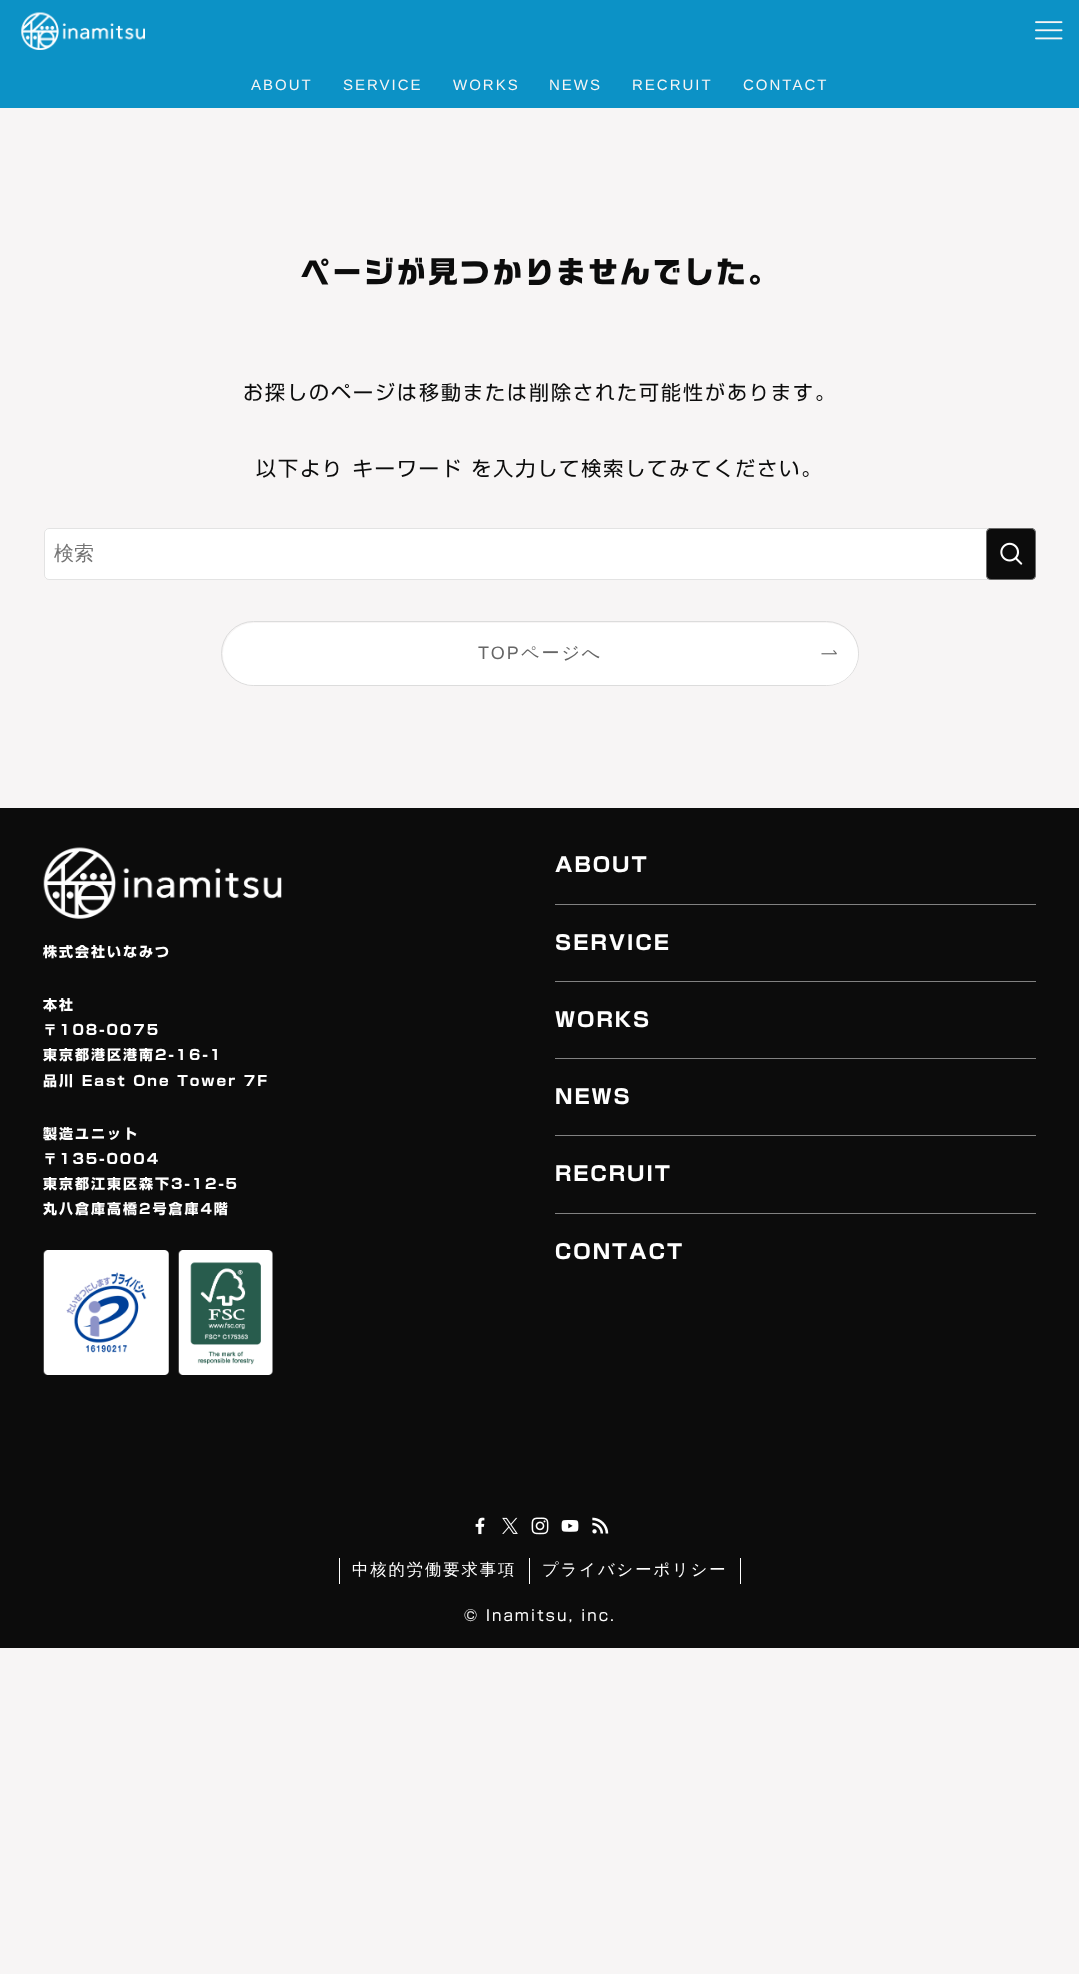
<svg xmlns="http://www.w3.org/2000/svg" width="1079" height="1974">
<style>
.a{font:15px Liberation Sans;letter-spacing:2px;fill:#f7f5f5}
.b{font:30px 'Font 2';letter-spacing:2px;fill:#0c0c0c}
.c{font:20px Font;letter-spacing:2px;fill:#0c0c0c}
.d{font:500 20px WenQuanYi Zen Hei;fill:#757575}
.e{font:18px Liberation Sans;letter-spacing:2px;fill:#666}
.f{font:500 18px WenQuanYi Zen Hei;letter-spacing:2px;fill:#666}
.g{font:bold 14px Font;letter-spacing:2px;fill:#fff}
.h{font:bold 20px Font;letter-spacing:2px;fill:#fff}
.i{font:500 16.25px WenQuanYi Zen Hei;letter-spacing:2px;fill:#fff}
.j{font:15px Font;letter-spacing:2px;fill:#fff}
</style>
<rect width="100%" height="100%" fill="#f7f5f5"/>
<path fill="#0c92c6" d="M0 0h1079v108H0z"/>
<image href="1.png" x="21" y="12" width="124" height="38"/>
<image href="2.png" x="1035" y="21" width="28" height="19"/>
<rect fill="#fff" x="44" y="528" width="992" height="52" rx="5"/>
<rect fill="none" stroke="#c7c7c780" x="44.5" y="528.5" width="991" height="51" rx="4.5"/>
<rect fill="#0c0c0c" x="986" y="528" width="50" height="52" rx="5"/>
<rect fill="none" stroke="#c7c7c780" x="986.5" y="528.5" width="49" height="51" rx="4.5"/>
<image href="3.png" x="1000" y="542" width="23" height="23"/>
<rect fill="none" stroke="#dcdcdc" x="221.5" y="621.5" width="637" height="64" rx="32"/>
<rect fill="#fff" x="223" y="623" width="635" height="62" rx="31"/>
<image href="4.png" x="821" y="650" width="16" height="5"/>
<path fill="#0c0c0c" d="M0 808h1079v840H0z"/>
<image href="5.png" x="43" y="847" width="239" height="72"/>
<image href="6.png" x="43" y="1250" width="126" height="125"/>
<image href="7.png" x="178" y="1250" width="95" height="125"/>
<path fill="#828282" d="M555 904h481v1H555z"/>
<path fill="#828282" d="M555 981h481v1H555z"/>
<path fill="#828282" d="M555 1058h481v1H555z"/>
<path fill="#828282" d="M555 1135h481v1H555z"/>
<path fill="#828282" d="M555 1213h481v1H555z"/>
<image href="8.png" x="475" y="1517" width="10" height="18"/>
<image href="9.png" x="502" y="1517" width="16" height="17"/>
<image href="10.png" x="531" y="1517" width="18" height="18"/>
<image href="11.png" x="561" y="1520" width="18" height="12"/>
<image href="12.png" x="592" y="1517" width="17" height="17"/>
<path fill="#fff" d="M529 1558h1v26H529z"/>
<path fill="#fff" d="M339 1558h1v26H339z"/>
<path fill="#fff" d="M740 1558h1v26H740z"/>
<text class="a" x="251" y="90">ABOUT</text>
<text class="a" x="343" y="90">SERVICE</text>
<text class="a" x="453" y="90">WORKS</text>
<text class="a" x="549" y="90">NEWS</text>
<text class="a" x="632" y="90">RECRUIT</text>
<text class="a" x="743" y="90">CONTACT</text>
<text class="b" x="300" y="283">ページが見つかりませんでした。</text>
<text class="c" x="243" y="400">お探しのページは移動または削除された可能性があります。</text>
<text class="c" x="256" y="476">以下より キーワード を入力して検索してみてください。</text>
<text class="d" x="54" y="560">検索</text>
<text class="e" x="478" y="659">TOP</text>
<text class="f" x="521" y="659">ページへ</text>
<text class="g" x="43" y="957">株式会社いなみつ</text>
<text class="g" x="43" y="1010">本社</text>
<text class="g" x="43" y="1035">〒108-0075</text>
<text class="g" x="43" y="1060">東京都港区港南2-16-1</text>
<text class="g" x="43" y="1086">品川 East One Tower 7F</text>
<text class="g" x="43" y="1139">製造ユニット</text>
<text class="g" x="43" y="1164">〒135-0004</text>
<text class="g" x="43" y="1189">東京都江東区森下3-12-5</text>
<text class="g" x="43" y="1214">丸八倉庫高橋2号倉庫4階</text>
<text class="h" x="555" y="872">ABOUT</text>
<text class="h" x="555" y="950">SERVICE</text>
<text class="h" x="555" y="1027">WORKS</text>
<text class="h" x="555" y="1104">NEWS</text>
<text class="h" x="555" y="1181">RECRUIT</text>
<text class="h" x="555" y="1259">CONTACT</text>
<text class="i" x="352" y="1575">中核的労働要求事項</text>
<text class="i" x="542" y="1575">プライバシーポリシー</text>
<text class="j" x="464" y="1621">© Inamitsu, inc.</text>
</svg>
